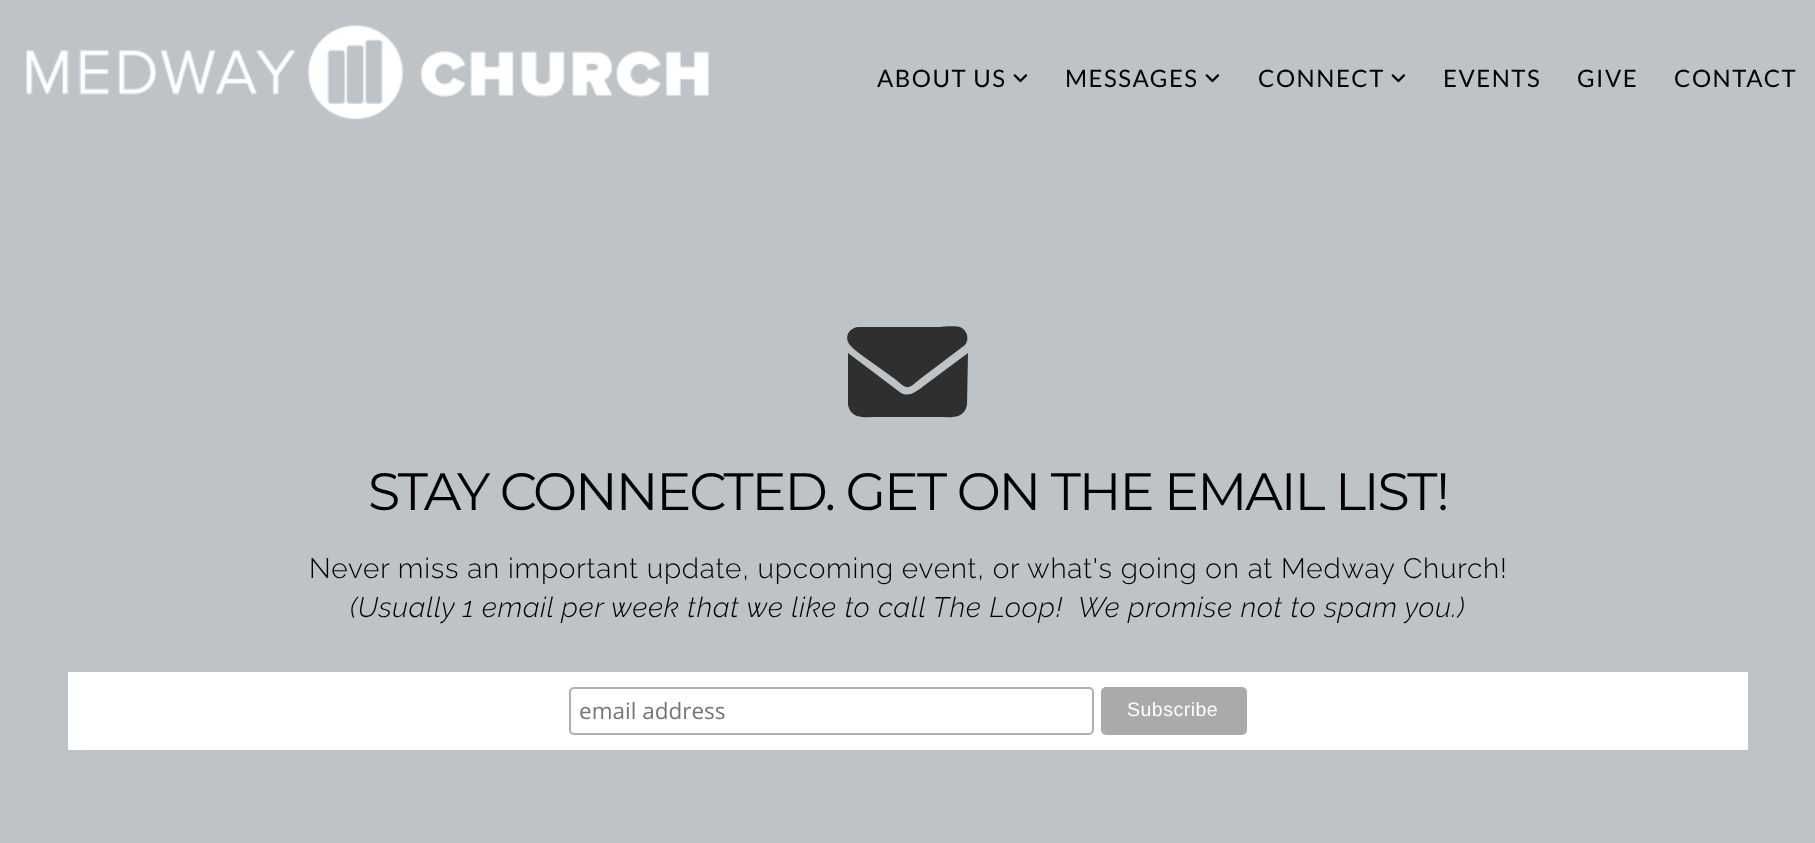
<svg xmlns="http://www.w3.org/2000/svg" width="1815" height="843">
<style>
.a{font:24px Lato;letter-spacing:1.5px;fill:#000}
.b{font:52.5px Montserrat;letter-spacing:-2.1px;fill:#000}
.c{font:300 28.05px Raleway;letter-spacing:0.77px;fill:#000}
.d{font:italic 300 28.05px Raleway;letter-spacing:0.77px;fill:#000}
.e{font:22.5px Open Sans;fill:#757575}
.f{font:19.5px Liberation Sans;letter-spacing:0.5px;fill:#fff}
</style>
<rect width="100%" height="100%" fill="#bdc3c7"/>
<image href="1.png" x="26" y="25" width="683" height="95"/>
<image href="2.png" x="1013" y="74" width="15" height="9"/>
<image href="2.png" x="1205" y="74" width="15" height="9"/>
<image href="2.png" x="1391" y="74" width="15" height="9"/>
<path fill="#2f2f2f" d="M859 327c-4 0-8 2-10 5c-6 10 4 16 11 22l35 25c13 11 12 11 25 0l45-34c4-5 3-13-3-17c-6-3-18-1-22-1zm-11 26v52c3 15 18 12 30 12h60c11 0 26 3 29-12l1-52l-43 32c-7 5-15 13-24 8z"/>
<path fill="#fff" d="M68 672h1680v78H68z"/>
<rect fill="none" stroke="#abb0b2" stroke-width="2" x="570" y="688" width="523" height="46" rx="4"/>
<rect fill="#aaa" x="1101" y="687" width="146" height="48" rx="5"/>
<text class="a" x="877" y="87">ABOUT US</text>
<text class="a" x="1065" y="87">MESSAGES</text>
<text class="a" x="1258" y="87">CONNECT</text>
<text class="a" x="1443" y="87">EVENTS</text>
<text class="a" x="1577" y="87">GIVE</text>
<text class="a" x="1674" y="87">CONTACT</text>
<text class="b" x="368" y="510">STAY CONNECTED. GET ON THE EMAIL LIST!</text>
<text class="c" x="309" y="578">Never miss an important update, upcoming event, or what's going on at Medway Church!</text>
<text class="d" xml:space="preserve" x="350" y="617">(Usually 1 email per week that we like to call The Loop!  We promise not to spam you.)</text>
<text class="e" x="579" y="719">email address</text>
<text class="f" x="1127" y="716">Subscribe</text>
</svg>
